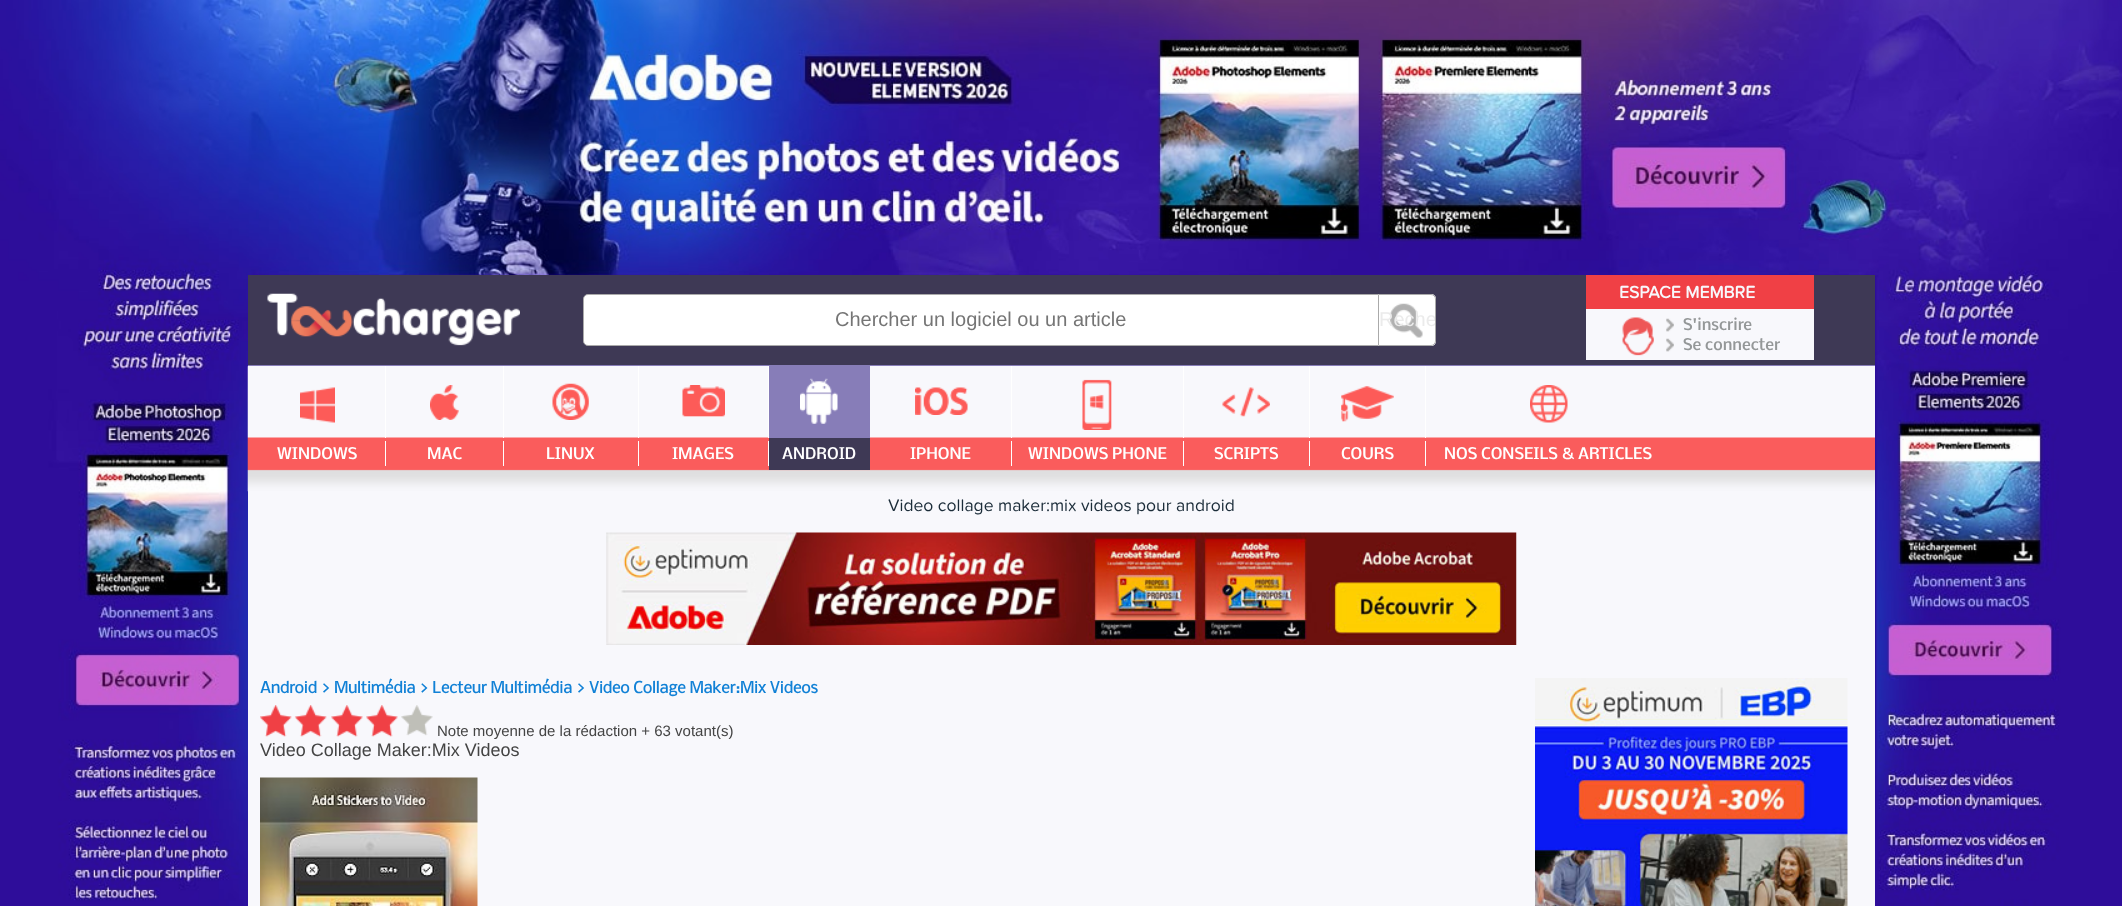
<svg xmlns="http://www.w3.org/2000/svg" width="2122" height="906">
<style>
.a{font:20px Liberation Sans;fill:#757575}
.b{font:20px Liberation Sans;fill:#ebebeb}
.c{font:bold 17.5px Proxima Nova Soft;fill:#f8f8fc}
.d{font:500 15px Nobile;fill:#949798}
.e{font:500 15px Nobile;fill:#fff}
.f{font:17.5px Proxima Nova Soft;fill:#1b2c39}
.g{font:bold 15px Nobile;fill:#1181d6}
.h{font:15px Liberation Sans;fill:#444}
.i{font:18px Liberation Sans;fill:#444}
</style>
<defs>
<clipPath id="clip1"><path d="M1379 295h52c2 0 4 2 4 4v42c0 2-2 4-4 4h-52z"/></clipPath>
</defs>
<rect width="100%" height="100%" fill="#fff"/>
<image href="1.png" x="0" y="0" width="2122" height="906"/>
<path fill="#f8f8fc" d="M248 366h1627v540H248z"/>
<path fill="#3e3955" d="M248 275h1627v90H248z"/>
<path fill="#877db8" d="M248 365h1627v1H248z"/>
<image href="2.png" x="267" y="293" width="253" height="53"/>
<path fill="#fff" stroke="#aaa" d="M588 294.5h790.5v51h-790.5c-2.5 0-4.5-2-4.5-4.5v-42c0-2.5 2-4.5 4.5-4.5z"/>
<path fill="#fff" d="M1378 294h53c3 0 5 2 5 5v42c0 3-2 5-5 5h-53z"/>
<image href="3.png" x="1390" y="303" width="33" height="35"/>
<path fill="none" stroke="#aaa" d="M1378.5 294.5h52.5c2.5 0 4.5 2 4.5 4.5v42c0 2.5-2 4.5-4.5 4.5h-52.5z"/>
<path fill="#f8f8fc" d="M1586 309h228v51H1586z"/>
<path fill="#f04045" d="M1586 275h228v34H1586z"/>
<image href="4.png" x="1622" y="317" width="32" height="39"/>
<image href="5.png" x="1666" y="318" width="8" height="14"/>
<image href="5.png" x="1666" y="338" width="8" height="14"/>
<image href="6.png" x="247" y="366" width="1628" height="126"/>
<path fill="#fff" d="M385 366h1v72H385z"/>
<image href="7.png" x="300" y="387" width="35" height="36"/>
<path fill="#fff" d="M385 441h1v25H385z"/>
<path fill="#fff" d="M503 366h1v72H503z"/>
<image href="8.png" x="430" y="385" width="29" height="35"/>
<path fill="#fff" d="M503 441h1v25H503z"/>
<path fill="#fff" d="M638 366h1v72H638z"/>
<image href="9.png" x="552" y="383" width="37" height="37"/>
<path fill="#fff" d="M638 441h1v25H638z"/>
<path fill="#fff" d="M768 366h1v72H768z"/>
<image href="10.png" x="682" y="385" width="43" height="32"/>
<path fill="#fff" d="M768 441h1v25H768z"/>
<path fill="#877db8" d="M769 366h101v72H769z"/>
<image href="11.png" x="800" y="378" width="38" height="46"/>
<path fill="#3e3955" d="M769 438h101v32H769z"/>
<path fill="#fff" d="M1011 366h1v72H1011z"/>
<image href="12.png" x="915" y="387" width="53" height="28"/>
<path fill="#fff" d="M1011 441h1v25H1011z"/>
<path fill="#fff" d="M1183 366h1v72H1183z"/>
<image href="13.png" x="1082" y="379" width="30" height="51"/>
<path fill="#fff" d="M1183 441h1v25H1183z"/>
<path fill="#fff" d="M1309 366h1v72H1309z"/>
<image href="14.png" x="1222" y="387" width="48" height="30"/>
<path fill="#fff" d="M1309 441h1v25H1309z"/>
<path fill="#fff" d="M1425 366h1v72H1425z"/>
<image href="15.png" x="1341" y="386" width="53" height="36"/>
<path fill="#fff" d="M1425 441h1v25H1425z"/>
<image href="16.png" x="1530" y="385" width="38" height="38"/>
<image href="17.png" x="606" y="532" width="911" height="113"/>
<image href="18.png" x="260" y="705" width="173" height="32"/>
<image href="19.png" x="260" y="777" width="218" height="129"/>
<image href="20.png" x="1535" y="678" width="313" height="228"/>
<text class="a" x="835" y="326">Chercher un logiciel ou un article</text>
<g clip-path="url(#clip1)">
<text class="b" x="1379" y="326">Reche</text>
</g>
<text class="c" x="1619" y="298">ESPACE MEMBRE</text>
<text class="d" x="1683" y="330">S'inscrire</text>
<text class="d" x="1683" y="350">Se connecter</text>
<text class="e" x="277" y="459">WINDOWS</text>
<text class="e" x="427" y="459">MAC</text>
<text class="e" x="546" y="459">LINUX</text>
<text class="e" x="672" y="459">IMAGES</text>
<text class="e" x="782" y="459">ANDROID</text>
<text class="e" x="910" y="459">IPHONE</text>
<text class="e" x="1028" y="459">WINDOWS PHONE</text>
<text class="e" x="1214" y="459">SCRIPTS</text>
<text class="e" x="1341" y="459">COURS</text>
<text class="e" x="1444" y="459">NOS CONSEILS &amp; ARTICLES</text>
<text class="f" x="888" y="511">Video collage maker:mix videos pour android</text>
<text class="g" x="260" y="693">Android &gt; Multimédia &gt; Lecteur Multimédia &gt; Video Collage Maker:Mix Videos</text>
<text class="h" x="437" y="736">Note moyenne de la rédaction + 63 votant(s)</text>
<text class="i" x="260" y="756">Video Collage Maker:Mix Videos</text>
</svg>
